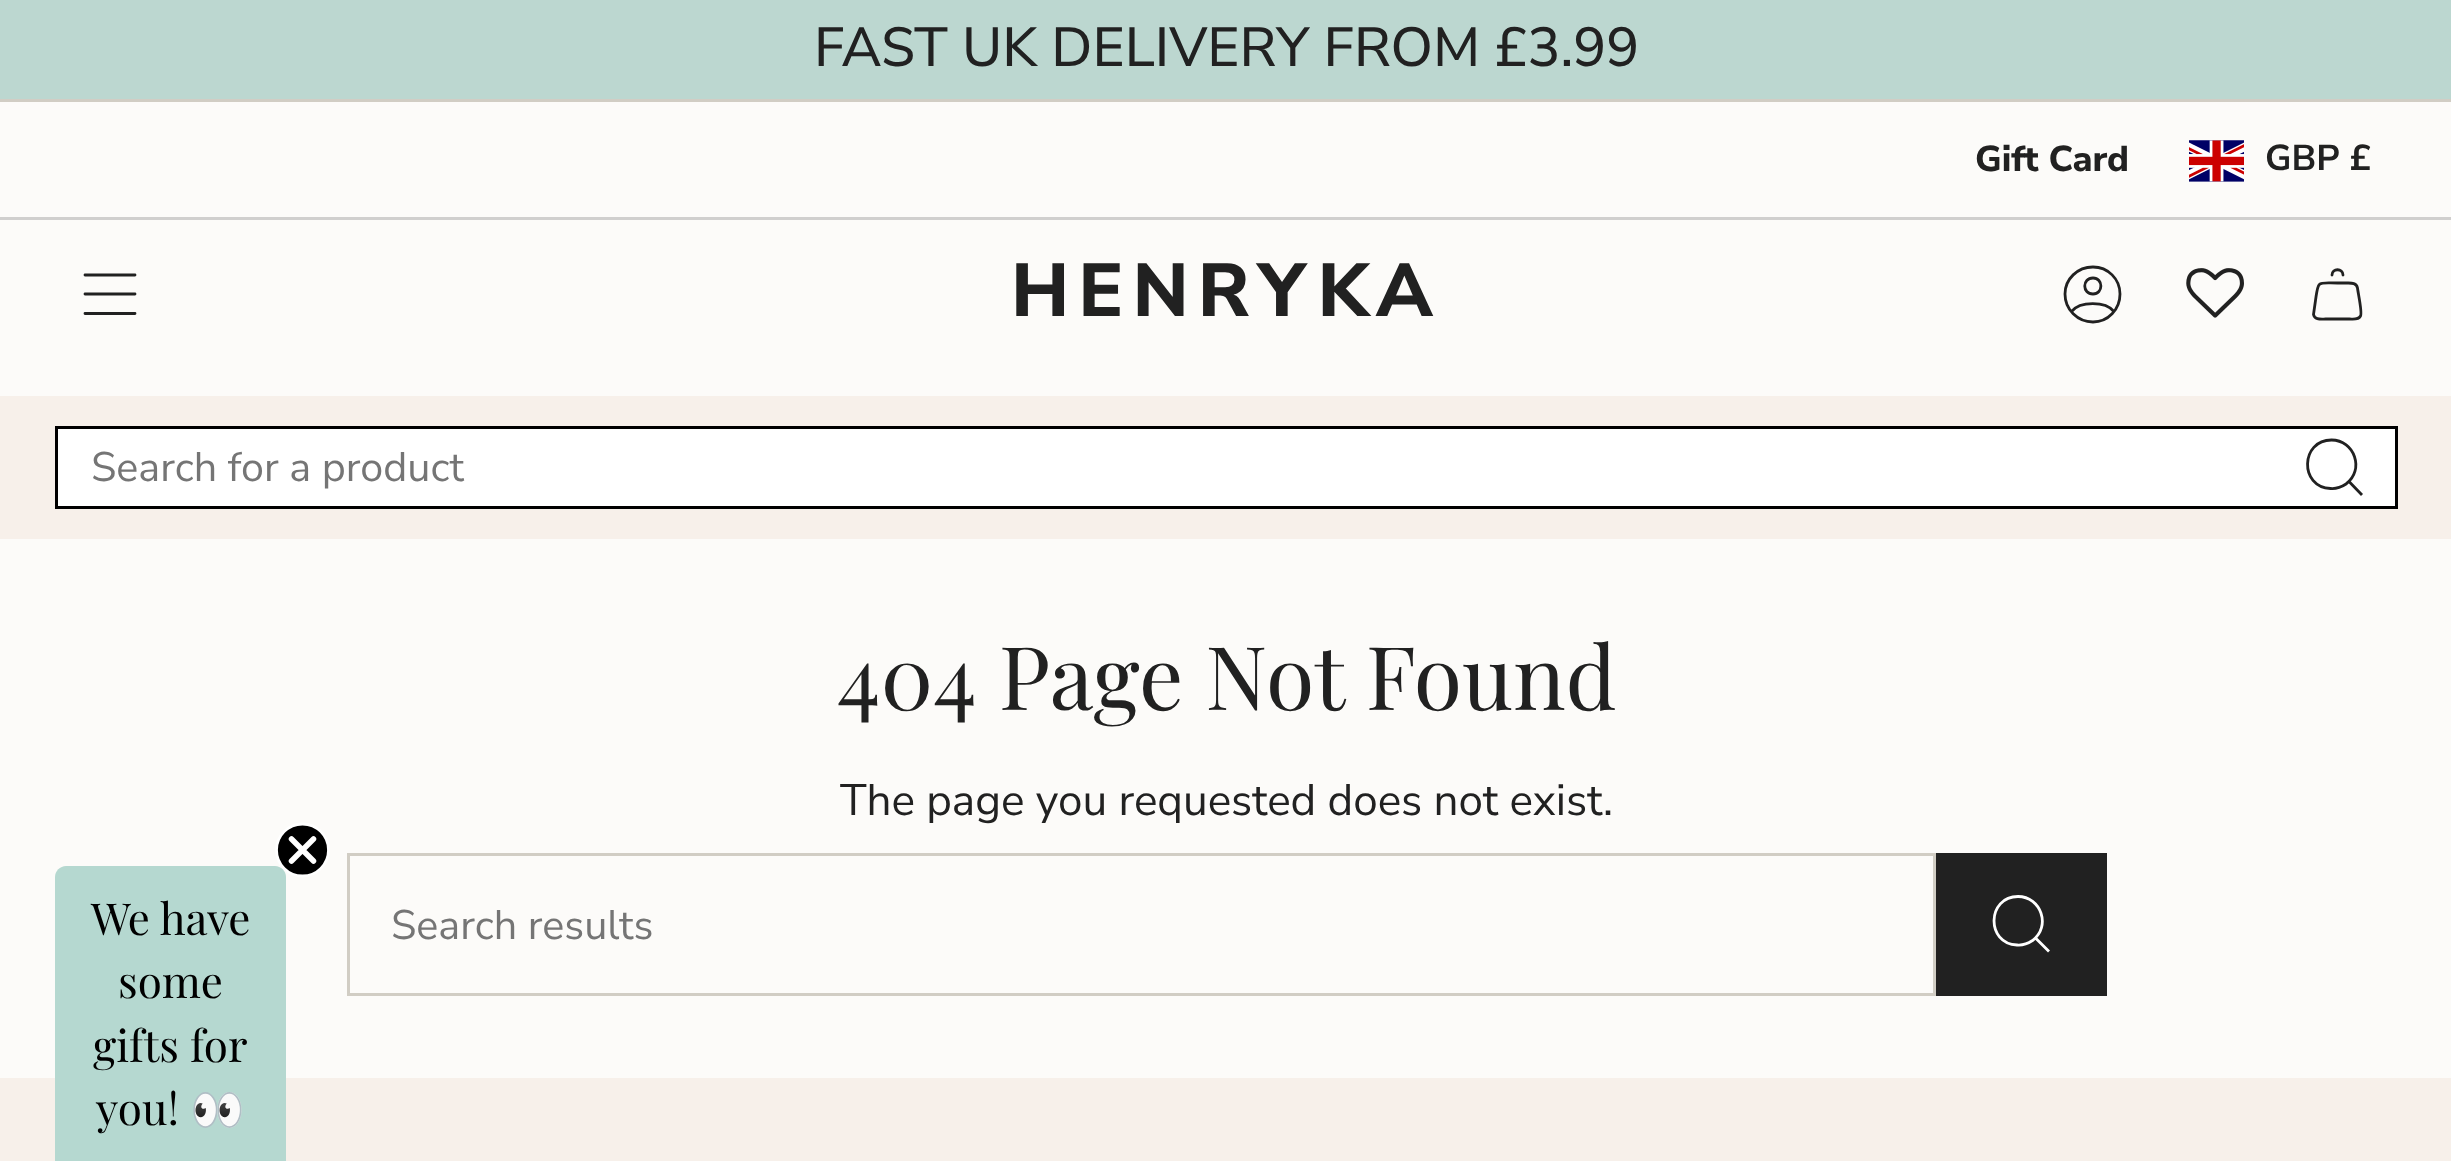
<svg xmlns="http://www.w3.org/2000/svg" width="2451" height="1161">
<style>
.a{font:500 55px Nunito Sans;fill:#212121}
.b{font:800 36px Nunito Sans;fill:#212121}
.c{font:bold 36px Nunito Sans;fill:#212121}
.d{font:800 74.75px Nunito Sans;letter-spacing:9px;fill:#212121}
.e{font:41.25px Nunito Sans;fill:#757575}
.f{font:88px Playfair Display;fill:#212121}
.g{font:44px Nunito Sans;fill:#212121}
.h{font:44px Playfair Display;fill:#000}
.i{font:44px Noto Color Emoji;fill:#000}
</style>
<rect width="100%" height="100%" fill="#fcfbf9"/>
<path fill="#bcd7d0" d="M0 0h2451v99H0z"/>
<path fill="#d1cdc4" d="M0 99h2451v3H0z"/>
<image href="1.png" x="2189" y="140" width="55" height="42"/>
<path fill="#d0cfce" d="M0 217h2451v3H0z"/>
<path fill="none" stroke="#212121" stroke-width="2.8" stroke-linecap="round" stroke-linejoin="round" d="M85 275h50m-50 19h50m-50 19.5h50"/>
<path fill="none" stroke="#212121" stroke-width="2.8" stroke-linecap="round" stroke-linejoin="round" d="M2093 267c-15.5 0-28 12-28 27c0 15.5 12.5 28 28 28c15 0 27-12.5 27-28c0-15-12-27-27-27zm-21.5 44.5c8.5-10.5 34-10.5 42.5 0m-21-17.5c10.5 0 10.5-16 0-16c-11 0-11 16 0 16z"/>
<image href="2.png" x="2186" y="268" width="58" height="50"/>
<path fill="none" stroke="#212121" stroke-width="2.8" stroke-linecap="round" stroke-linejoin="round" d="M2357.5 288c.5 5 5 24.5 3 28c-2 4-7 3-11 3h-24c-4.5 0-11 1-12-4.5l2-14c3-20.5 1-17.5 22-17.5h9.5c4 0 9.5-.5 10.5 5zm-14.5-13c0-7-11-7-11 0"/>
<path fill="#f7f0ea" d="M0 396h2451v143H0z"/>
<path fill="#fff" stroke="#000" stroke-width="3" d="M56.5 427.5h2340v80H56.5z"/>
<path fill="none" stroke="#212121" stroke-width="2.8" d="M2331.5 440c23 0 33.5 30 14.5 44c-4.5 3-10 5-15.5 4.5c-31.5-1.5-30-48.5 1-48.5zm17.5 41.5l13 13.5"/>
<path fill="none" stroke="#d1cdc4" stroke-width="3" d="M348.5 854.5h1586v140H348.5z"/>
<path fill="#212121" d="M1936 853h171v143H1936z"/>
<path fill="none" stroke="#fff" stroke-width="2.8" d="M2018 896.5c23 0 33.5 30 14.5 44c-4.5 3-10 5-15.5 4.5c-31.5-1.5-30-48.5 1-48.5zm17.5 41.5l13.5 13.5"/>
<path fill="#f7f0ea" d="M0 1078h2451v83H0z"/>
<path fill="#b5d8d0" d="M66 866h209c6 0 11 5 11 11v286h-231v-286c0-6 5-11 11-11z"/>
<circle fill="#000" stroke="#fff" stroke-width="2.8" cx="302.5" cy="850" r="26"/>
<path fill="none" stroke="#fff" stroke-width="5.5" stroke-linecap="round" stroke-linejoin="round" d="M291.5 839l22 22m-22 0l22-22z"/>
<text class="a" x="814" y="66">FAST UK DELIVERY FROM £3.99</text>
<text class="b" x="1975" y="171">Gift Card</text>
<text class="c" x="2265" y="170">GBP £</text>
<text class="d" x="1011" y="316">HENRYKA</text>
<text class="e" x="91" y="481">Search for a product</text>
<text class="f" x="837" y="710">404 Page Not Found</text>
<text class="g" x="840" y="815">The page you requested does not exist.</text>
<text class="e" x="391" y="939">Search results</text>
<text class="h" x="91" y="935">We have</text>
<text class="h" x="118" y="998">some</text>
<text class="h" x="93" y="1062">gifts for</text>
<text class="h" x="96" y="1125">you!</text>
<text class="i" x="190" y="1125">👀</text>
</svg>
